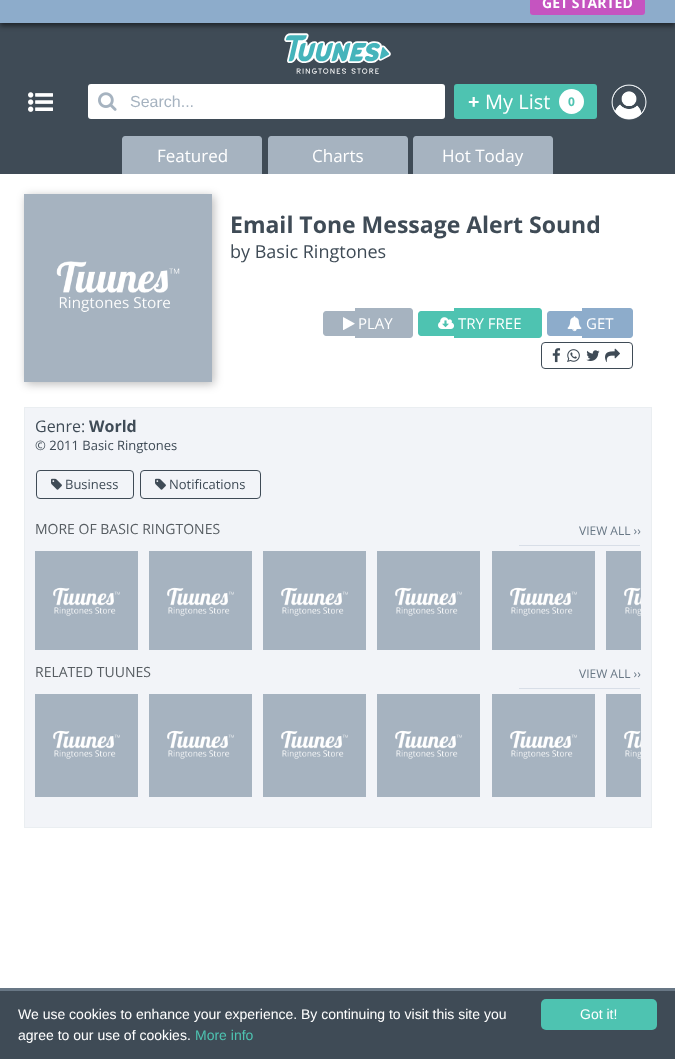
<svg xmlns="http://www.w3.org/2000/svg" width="675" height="1059">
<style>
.a{font:bold 14px Open Sans;fill:#fff}
.b{font:16px Liberation Sans;fill:#a6b3c0}
.c{font:bold 20px Open Sans;fill:#fff}
.d{font:20px Open Sans;fill:#fff}
.e{font:bold 12px Open Sans;fill:#4ec3b1}
.f{font:17px Open Sans;fill:#fff}
.g{font:bold 23px Open Sans;fill:#3f4b56}
.h{font:18px Open Sans;fill:#3f4b56}
.i{font:15px Open Sans;fill:#fff}
.j{font:16px Open Sans;fill:#3f4b56}
.k{font:bold 16px Open Sans;fill:#3f4b56}
.l{font:13px Open Sans;fill:#3f4b56}
.m{font:14px Open Sans;fill:#565c61}
.n{font:12px Open Sans;fill:#687785}
.o{font:14px Liberation Sans;fill:#fff}
.p{font:14px Liberation Sans;fill:#4ec3b1}
</style>
<rect width="100%" height="100%" fill="#fff"/>
<path fill="#3f4b56" d="M0 23h675v151H0z"/>
<image href="1.png" x="284" y="33" width="107" height="41"/>
<path fill="#00000080" filter="blur(2.5px)" d="M0 -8h675v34H0z"/>
<path fill="#8daccb" d="M0 0h675v23H0z"/>
<rect fill="#c554c0" x="530" y="-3" width="115" height="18" rx="3"/>
<image href="2.png" x="28" y="92" width="25" height="20"/>
<rect fill="#fff" x="88" y="84" width="357" height="35" rx="3"/>
<image href="3.png" x="98" y="92" width="19" height="19"/>
<rect fill="#4ec3b1" x="454" y="84" width="143" height="35" rx="3"/>
<circle fill="#fff" cx="571.5" cy="101.5" r="12.5"/>
<image href="4.png" x="611" y="84" width="36" height="36"/>
<path fill="#a6b3c0" d="M125 136h134c1.5 0 3 1.5 3 3v35h-140v-35c0-1.5 1.5-3 3-3z"/>
<path fill="#a6b3c0" d="M271 136h134c1.5 0 3 1.5 3 3v35h-140v-35c0-1.5 1.5-3 3-3z"/>
<path fill="#a6b3c0" d="M416 136h134c1.5 0 3 1.5 3 3v35h-140v-35c0-1.5 1.5-3 3-3z"/>
<path fill="#00000045" filter="blur(5px)" d="M26 196h188v188H26z"/>
<image href="5.png" x="24" y="194" width="188" height="188"/>
<path fill="#a6b3c0" d="M326 311h29v25h-29c-1.5 0-3-1.5-3-3v-19c0-1.5 1.5-3 3-3z"/>
<path fill="#a6b3c0" d="M355 308h55c1.5 0 3 1.5 3 3v24c0 1.5-1.5 3-3 3h-55z"/>
<image href="6.png" x="343" y="317" width="12" height="13"/>
<path fill="#4ec3b1" d="M421 311h33v25h-33c-1.5 0-3-1.5-3-3v-19c0-1.5 1.5-3 3-3z"/>
<path fill="#4ec3b1" d="M454 308h85c1.5 0 3 1.5 3 3v24c0 1.5-1.5 3-3 3h-85z"/>
<image href="7.png" x="438" y="317" width="17" height="12"/>
<path fill="#8daccb" d="M550 311h32v25h-32c-1.5 0-3-1.5-3-3v-19c0-1.5 1.5-3 3-3z"/>
<path fill="#8daccb" d="M582 308h48c1.5 0 3 1.5 3 3v24c0 1.5-1.5 3-3 3h-48z"/>
<image href="8.png" x="567" y="316" width="15" height="16"/>
<rect fill="none" stroke="#3f4b56" x="541.5" y="342.5" width="91" height="26" rx="3.5"/>
<image href="9.png" x="552" y="348" width="9" height="15"/>
<image href="10.png" x="567" y="349" width="13" height="13"/>
<image href="11.png" x="586" y="350" width="14" height="11"/>
<image href="12.png" x="605" y="348" width="15" height="14"/>
<path fill="#f2f4f8" d="M25 408h626v419H25z"/>
<path fill="#eaeef1" d="M24 407h628v1H24z"/>
<path fill="#eaeef1" d="M651 407h1v421H651z"/>
<path fill="#eaeef1" d="M24 407h1v243H24z"/>
<rect fill="none" stroke="#3f4b56" x="36.5" y="470.5" width="97" height="28" rx="3.5"/>
<image href="13.png" x="51" y="478" width="11" height="12"/>
<rect fill="none" stroke="#3f4b56" x="140.5" y="470.5" width="120" height="28" rx="3.5"/>
<image href="13.png" x="155" y="478" width="11" height="12"/>
<path fill="#d8dee7" d="M519 545h121v1H519z"/>
<image href="14.png" x="35" y="551" width="103" height="99"/>
<image href="15.png" x="149" y="551" width="103" height="99"/>
<image href="14.png" x="263" y="551" width="103" height="99"/>
<image href="15.png" x="377" y="551" width="103" height="99"/>
<image href="14.png" x="492" y="551" width="103" height="99"/>
<image href="16.png" x="606" y="551" width="35" height="99"/>
<path fill="#eaeef1" d="M24 827h628v1H24z"/>
<path fill="#eaeef1" d="M24 650h1v178H24z"/>
<path fill="#d8dee7" d="M519 688h121v1H519z"/>
<image href="17.png" x="35" y="694" width="103" height="103"/>
<image href="18.png" x="149" y="694" width="103" height="103"/>
<image href="17.png" x="263" y="694" width="103" height="103"/>
<image href="18.png" x="377" y="694" width="103" height="103"/>
<image href="17.png" x="492" y="694" width="103" height="103"/>
<image href="19.png" x="606" y="694" width="35" height="103"/>
<path fill="#687785" d="M0 988h675v3H0z"/>
<path fill="#3f4b56" d="M0 991h675v68H0z"/>
<rect fill="#4ec3b1" x="541" y="999" width="116" height="31" rx="5"/>
<text class="a" x="542" y="8">GET STARTED</text>
<text class="b" x="130" y="107">Search...</text>
<text class="c" x="468" y="109">+</text>
<text class="d" x="485" y="109">My List</text>
<text class="e" x="568" y="106">0</text>
<text class="f" x="157" y="162">Featured</text>
<text class="f" x="312" y="162">Charts</text>
<text class="f" x="442" y="162">Hot Today</text>
<text class="g" x="230" y="233">Email Tone Message Alert Sound</text>
<text class="h" x="230" y="258">by Basic Ringtones</text>
<text class="i" x="358" y="329">PLAY</text>
<text class="i" x="458" y="329">TRY FREE</text>
<text class="i" x="586" y="329">GET</text>
<text class="j" x="35" y="432">Genre:</text>
<text class="k" x="89" y="432">World</text>
<text class="l" x="35" y="450">© 2011 Basic Ringtones</text>
<text class="l" x="65" y="489">Business</text>
<text class="l" x="169" y="489">Notifications</text>
<text class="m" x="35" y="534">MORE OF BASIC RINGTONES</text>
<text class="n" x="579" y="535">VIEW ALL ››</text>
<text class="m" x="35" y="677">RELATED TUUNES</text>
<text class="n" x="579" y="678">VIEW ALL ››</text>
<text class="o" x="18" y="1019">We use cookies to enhance your experience. By continuing to visit this site you</text>
<text class="o" x="18" y="1040">agree to our use of cookies.</text>
<text class="p" x="195" y="1040">More info</text>
<text class="o" x="580" y="1019">Got it!</text>
</svg>
